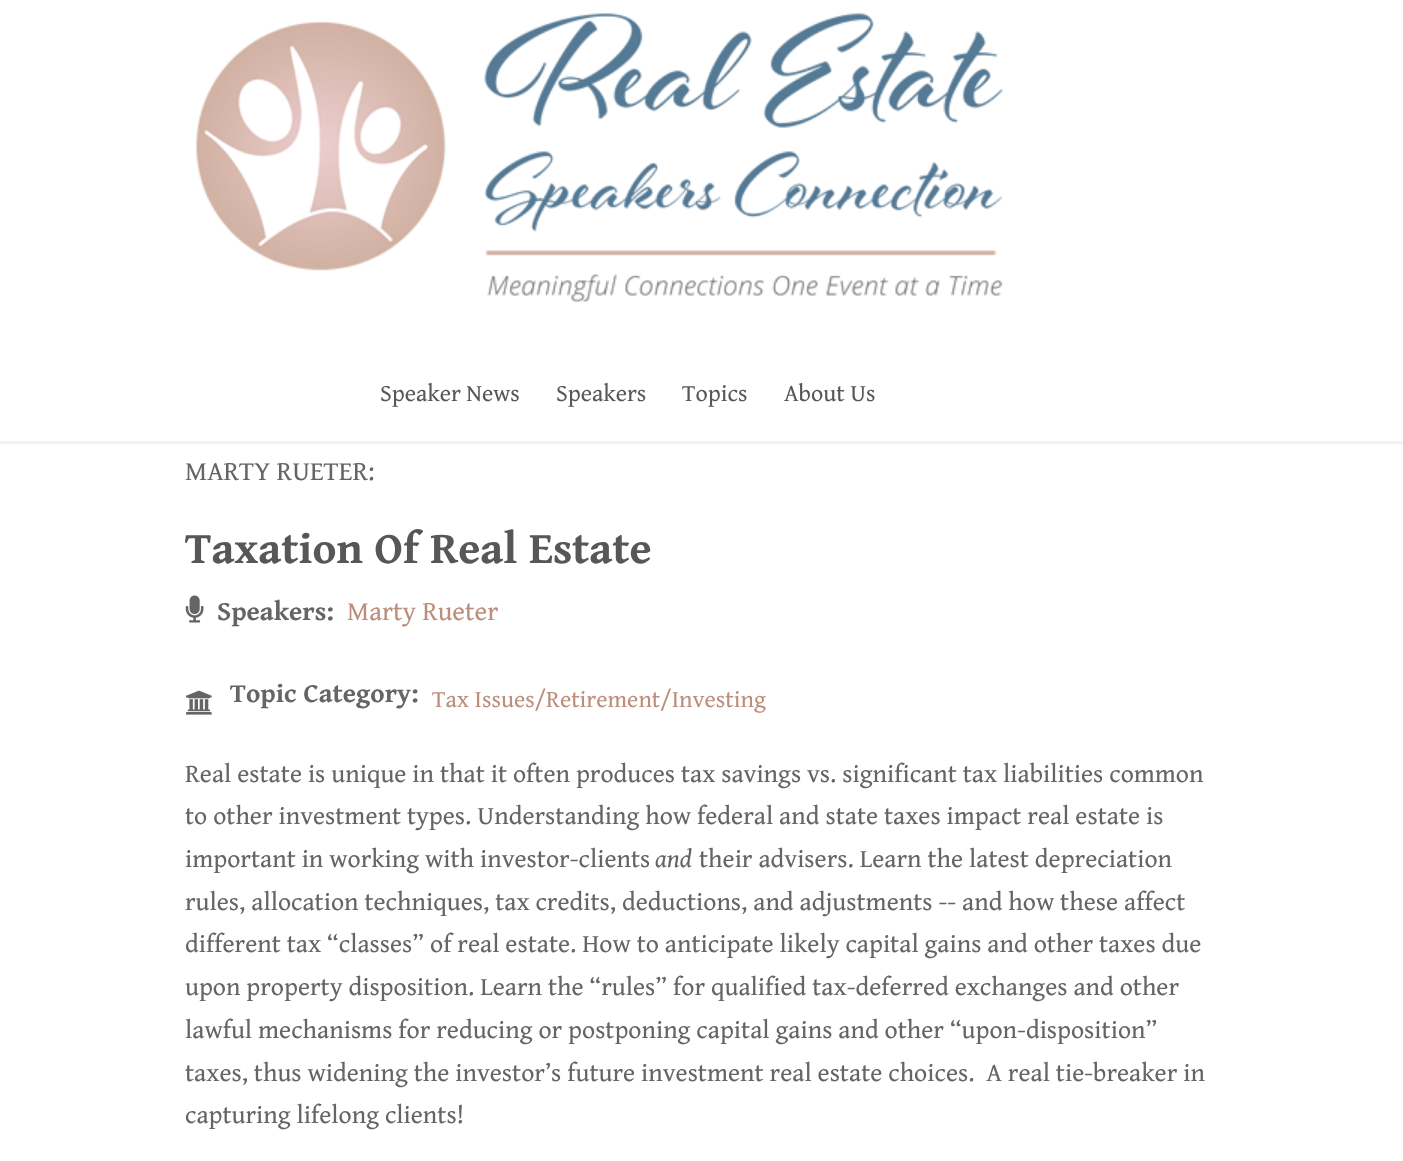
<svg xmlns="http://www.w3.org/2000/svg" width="1403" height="1161">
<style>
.a{font:24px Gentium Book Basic;fill:#575757}
.b{font:27px Gentium Book Basic;fill:#656565}
.c{font:bold 45px Gentium Book Basic;fill:#575757}
.d{font:bold 27px Gentium Book Basic;fill:#656565}
.e{font:27px Gentium Book Basic;fill:#bc8e7b}
.f{font:24px Gentium Book Basic;fill:#bc8e7b}
.g{font:25.75px Gentium Book Basic;fill:#656565}
.h{font:italic 25.75px Gentium Book Basic;fill:#656565}
</style>
<rect width="100%" height="100%" fill="#fff"/>
<path fill="#f2f2f2" d="M0 441h1403v3H0z"/>
<image href="1.png" x="195" y="13" width="809" height="289"/>
<image href="2.png" x="185" y="595" width="19" height="28"/>
<image href="3.png" x="186" y="690" width="26" height="25"/>
<text class="a" x="380" y="401">Speaker News</text>
<text class="a" x="556" y="401">Speakers</text>
<text class="a" x="682" y="401">Topics</text>
<text class="a" x="784" y="401">About Us</text>
<text class="b" x="185" y="480">MARTY RUETER:</text>
<text class="c" x="185" y="563">Taxation Of Real Estate</text>
<text class="d" x="217" y="620">Speakers:</text>
<text class="e" x="347" y="620">Marty Rueter</text>
<text class="d" x="230" y="702">Topic Category:</text>
<text class="f" x="432" y="707">Tax Issues/Retirement/Investing</text>
<text class="g" x="185" y="782">Real estate is unique in that it often produces tax savings vs. significant tax liabilities common</text>
<text class="g" x="185" y="824">to other investment types. Understanding how federal and state taxes impact real estate is</text>
<text class="g" x="185" y="867">important in working with investor-clients</text>
<text class="h" x="655" y="867">and</text>
<text class="g" x="699" y="867">their advisers. Learn the latest depreciation</text>
<text class="g" x="185" y="910">rules, allocation techniques, tax credits, deductions, and adjustments -- and how these affect</text>
<text class="g" x="185" y="952">different tax “classes” of real estate. How to anticipate likely capital gains and other taxes due</text>
<text class="g" x="185" y="995">upon property disposition. Learn the “rules” for qualified tax-deferred exchanges and other</text>
<text class="g" x="185" y="1038">lawful mechanisms for reducing or postponing capital gains and other “upon-disposition”</text>
<text class="g" xml:space="preserve" x="185" y="1081">taxes, thus widening the investor’s future investment real estate choices.  A real tie-breaker in</text>
<text class="g" x="185" y="1123">capturing lifelong clients!</text>
</svg>
